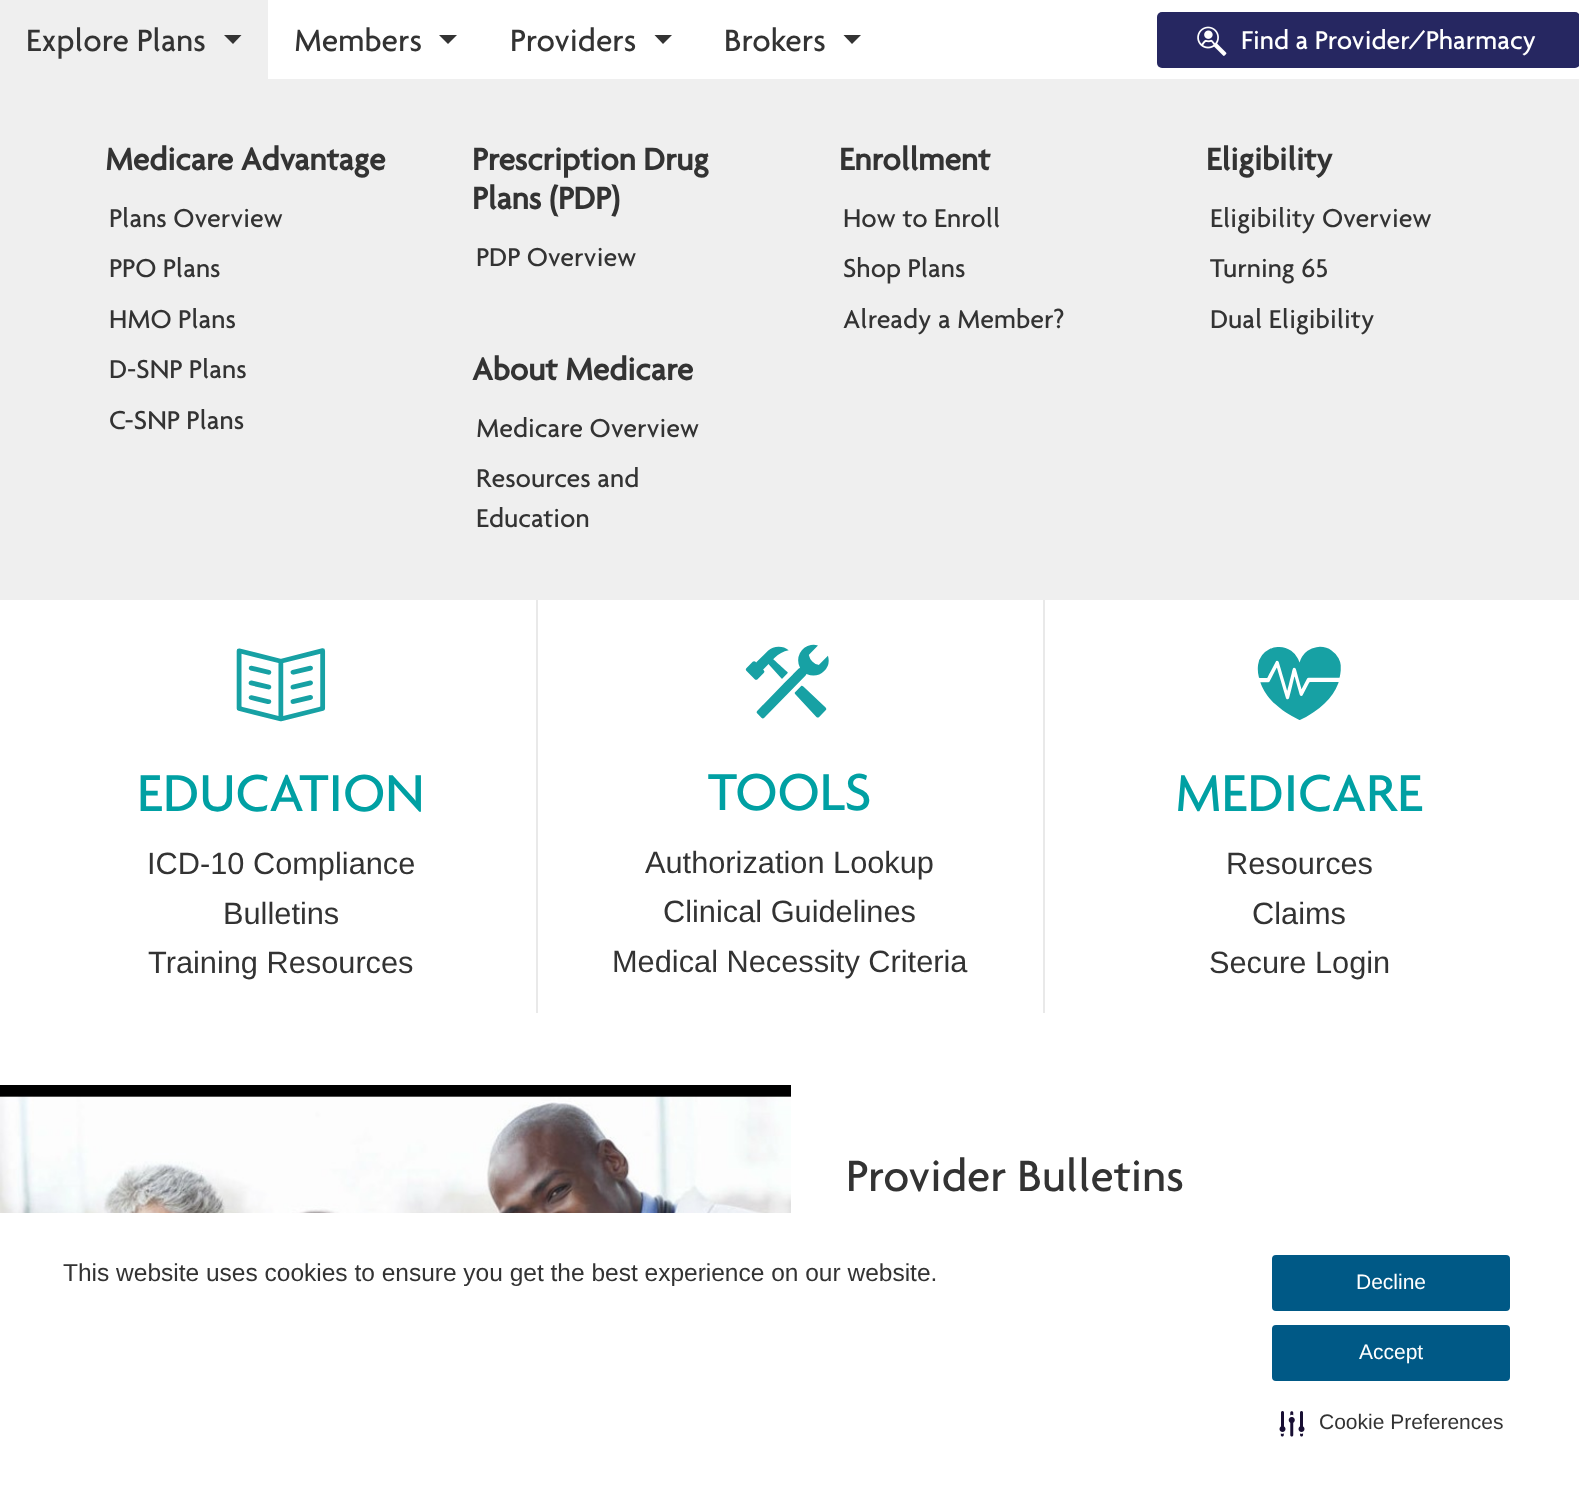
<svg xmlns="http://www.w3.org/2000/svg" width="1579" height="1506">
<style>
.a{font:500 33.5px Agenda;fill:#333}
.b{font:bold 33.5px Agenda;fill:#333}
.c{font:500 28px Agenda;fill:#333}
.d{font:500 28px Agenda;fill:#fff}
.e{font:500 56px Agenda;fill:#00a0a3}
.f{font:30.75px Liberation Sans;fill:#333}
.g{font:500 47.25px Agenda;fill:#333}
.h{font:24.5px Liberation Sans;fill:#333}
.i{font:21px Liberation Sans;fill:#fff}
.j{font:21px Liberation Sans;fill:#333}
</style>
<rect width="100%" height="100%" fill="#fff"/>
<path fill="#efefef" d="M0 0h268v79H0z"/>
<path fill="#333" d="M224 35h17.5l-8.5 9z"/>
<path fill="#efefef" d="M0 79h1579v521H0z"/>
<path fill="#333" d="M439 35h18l-9 9z"/>
<path fill="#333" d="M654.5 35h17.5l-9 9z"/>
<path fill="#333" d="M843.5 35h17.5l-9 9z"/>
<rect fill="#262761" x="1157" y="12" width="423" height="56" rx="5"/>
<image href="1.png" x="1197" y="26" width="30" height="30"/>
<image href="2.png" x="236" y="648" width="90" height="74"/>
<path fill="#e9e9e9" d="M1043 600h2v413H1043z"/>
<path fill="#e9e9e9" d="M536 600h2v413H536z"/>
<image href="3.png" x="745" y="644" width="84" height="75"/>
<image href="4.png" x="1257" y="646" width="84" height="74"/>
<image href="5.png" x="0" y="1085" width="791" height="128"/>
<rect fill="#005986" stroke="#005986" stroke-width="2" x="1273" y="1256" width="236" height="54" rx="3"/>
<rect fill="#005986" stroke="#005986" stroke-width="2" x="1273" y="1326" width="236" height="54" rx="3"/>
<image href="6.png" x="1279" y="1411" width="26" height="26"/>
<text class="a" x="26" y="51">Explore Plans</text>
<text class="b" x="105" y="170">Medicare Advantage</text>
<text class="c" x="109" y="227">Plans Overview</text>
<text class="c" x="109" y="277">PPO Plans</text>
<text class="c" x="109" y="328">HMO Plans</text>
<text class="c" x="109" y="378">D-SNP Plans</text>
<text class="c" x="109" y="429">C-SNP Plans</text>
<text class="b" x="472" y="170">Prescription Drug</text>
<text class="b" x="472" y="209">Plans (PDP)</text>
<text class="c" x="476" y="266">PDP Overview</text>
<text class="b" x="839" y="170">Enrollment</text>
<text class="c" x="843" y="227">How to Enroll</text>
<text class="c" x="843" y="277">Shop Plans</text>
<text class="c" x="843" y="328">Already a Member?</text>
<text class="b" x="1206" y="170">Eligibility</text>
<text class="c" x="1210" y="227">Eligibility Overview</text>
<text class="c" x="1210" y="277">Turning 65</text>
<text class="c" x="1210" y="328">Dual Eligibility</text>
<text class="b" x="472" y="380">About Medicare</text>
<text class="c" x="476" y="437">Medicare Overview</text>
<text class="c" x="476" y="487">Resources and</text>
<text class="c" x="476" y="527">Education</text>
<text class="a" x="294" y="51">Members</text>
<text class="a" x="510" y="51">Providers</text>
<text class="a" x="724" y="51">Brokers</text>
<text class="d" x="1241" y="49">Find a Provider/Pharmacy</text>
<text class="e" x="137" y="811">EDUCATION</text>
<text class="f" x="147" y="874">ICD-10 Compliance</text>
<text class="f" x="223" y="924">Bulletins</text>
<text class="f" x="148" y="973">Training Resources</text>
<text class="e" x="708" y="810">TOOLS</text>
<text class="f" x="645" y="873">Authorization Lookup</text>
<text class="f" x="663" y="922">Clinical Guidelines</text>
<text class="f" x="612" y="972">Medical Necessity Criteria</text>
<text class="e" x="1175" y="811">MEDICARE</text>
<text class="f" x="1226" y="874">Resources</text>
<text class="f" x="1252" y="924">Claims</text>
<text class="f" x="1209" y="973">Secure Login</text>
<text class="g" x="846" y="1191">Provider Bulletins</text>
<text class="h" x="63" y="1281">This website uses cookies to ensure you get the best experience on our website.</text>
<text class="i" x="1356" y="1289">Decline</text>
<text class="i" x="1359" y="1359">Accept</text>
<text class="j" x="1319" y="1429">Cookie Preferences</text>
</svg>
